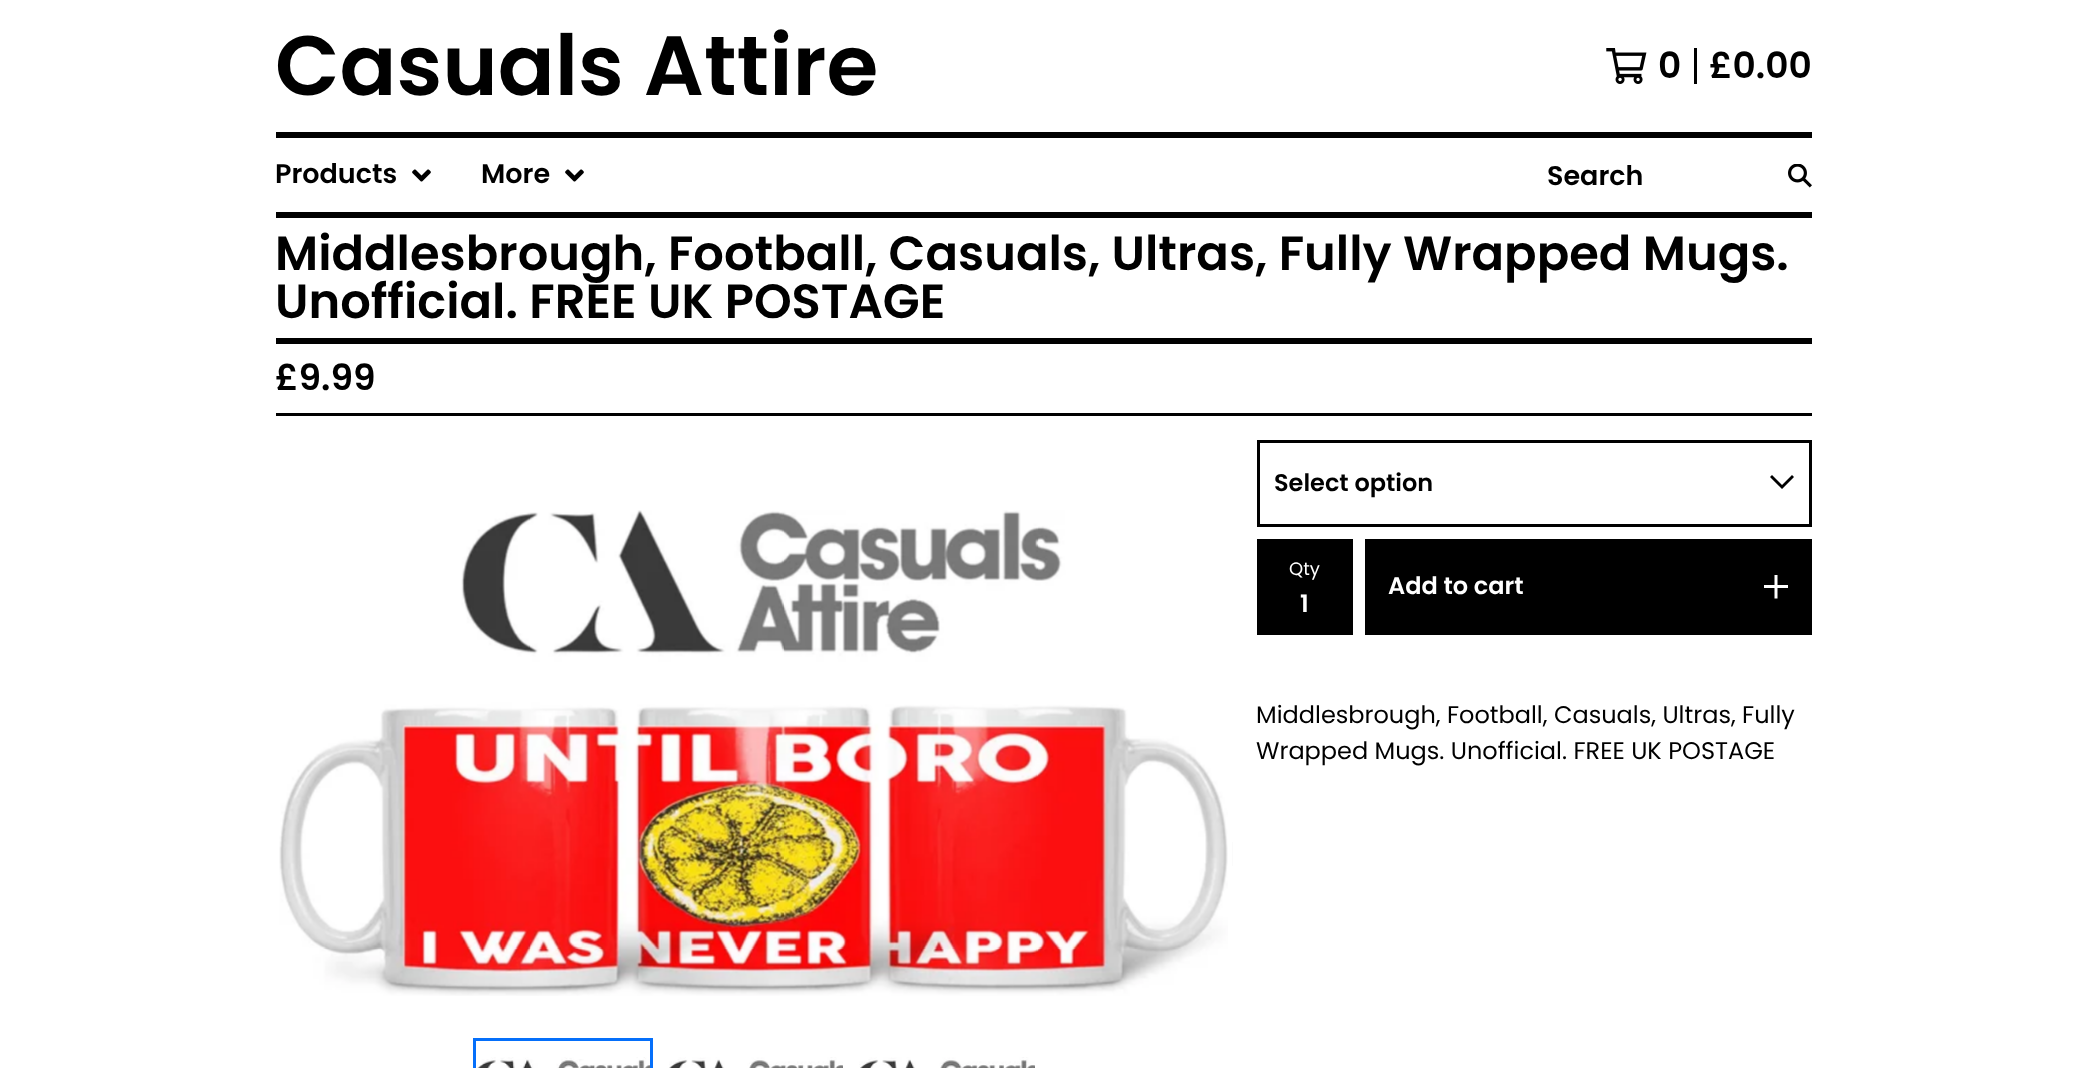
<svg xmlns="http://www.w3.org/2000/svg" width="2086" height="1068">
<style>
.a{font:600 84px Poppins;fill:#000}
.b{font:600 36px Poppins;fill:#000}
.c{font:600 27px Poppins;fill:#000}
.d{font:600 48px Poppins;fill:#000}
.e{font:600 24px Poppins;fill:#000}
.f{font:18px Poppins;fill:#fff}
.g{font:600 24px Poppins;fill:#fff}
.h{font:24px Poppins;fill:#000}
</style>
<rect width="100%" height="100%" fill="#fff"/>
<path fill="#000" d="M276 132h1536v6H276z"/>
<image href="1.png" x="1606" y="48" width="41" height="36"/>
<path fill="#000" d="M1694 48h3v36H1694z"/>
<path fill="#000" d="M276 212h1536v6H276z"/>
<image href="2.png" x="412" y="169" width="19" height="13"/>
<image href="2.png" x="565" y="169" width="19" height="13"/>
<image href="3.png" x="1788" y="164" width="24" height="24"/>
<path fill="#000" d="M276 338h1536v6H276z"/>
<path fill="#000" d="M276 413h1536v3H276z"/>
<image href="4.png" x="279" y="510" width="949" height="486"/>
<path fill="#fbfbfb" d="M1232 842h1v24H1232z"/>
<image href="5.png" x="477" y="1057" width="173" height="11"/>
<path fill="none" stroke="#056ffa" stroke-width="3" d="M474.5 1039.5h177v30H474.5z"/>
<image href="6.png" x="669" y="1057" width="174" height="11"/>
<image href="7.png" x="859" y="1057" width="176" height="11"/>
<path fill="#000" fill-rule="evenodd" d="M1782 489l-12-12l2-2l10 10l10-10l2 2z"/>
<path fill="none" stroke="#000" stroke-width="3" d="M1258.5 441.5h552v84H1258.5z"/>
<path fill="#000" d="M1257 539h96v96H1257z"/>
<path fill="#000" d="M1365 539h447v96H1365z"/>
<image href="8.png" x="1764" y="575" width="24" height="24"/>
<text class="a" x="275" y="95">Casuals Attire</text>
<text class="b" x="1658" y="78">0</text>
<text class="b" x="1709" y="78">£0.00</text>
<text class="c" x="275" y="183">Products</text>
<text class="c" x="481" y="183">More</text>
<text class="c" x="1547" y="185">Search</text>
<text class="d" x="275" y="270">Middlesbrough, Football, Casuals, Ultras, Fully Wrapped Mugs.</text>
<text class="d" x="275" y="318">Unofficial. FREE UK POSTAGE</text>
<text class="b" x="275" y="390">£9.99</text>
<text class="e" x="1274" y="491">Select option</text>
<text class="f" x="1289" y="575">Qty</text>
<text class="g" x="1300" y="612">1</text>
<text class="g" x="1388" y="594">Add to cart</text>
<text class="h" x="1256" y="723">Middlesbrough, Football, Casuals, Ultras, Fully</text>
<text class="h" x="1256" y="759">Wrapped Mugs. Unofficial. FREE UK POSTAGE</text>
</svg>
